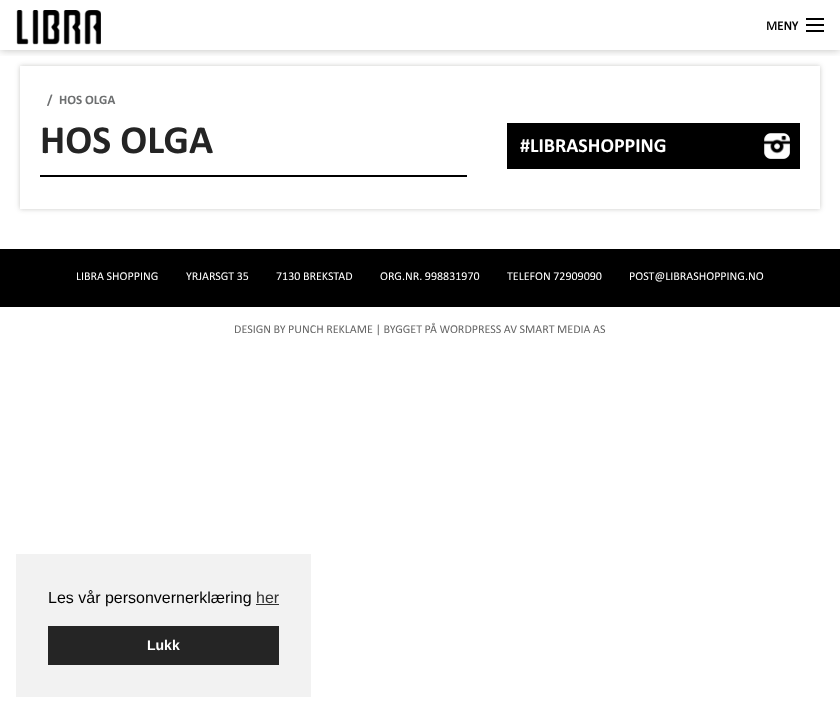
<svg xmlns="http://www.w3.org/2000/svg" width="840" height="713">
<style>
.a{font:bold 13px 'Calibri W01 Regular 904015';fill:#000}
.b{font:bold 13px 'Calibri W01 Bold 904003';fill:#6d6f70}
.c{font:bold 40px 'Calibri W01 Bold 904003';fill:#242424}
.d{font:bold 20px 'Calibri W01 Bold 904003';fill:#fff}
.e{font:12px 'Calibri W01 Regular 904015';fill:#fff}
.f{font:12px 'Calibri W01 Regular 904015';fill:#666}
.g{font:16px Liberation Sans;fill:#000}
.h{font:16px Liberation Sans;fill:#303030}
.i{font:bold 14px Liberation Sans;fill:#fff}
</style>
<defs>
<clipPath id="clip1"><path d="M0 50h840v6H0z"/></clipPath>
<clipPath id="clip2"><path d="M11 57h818v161h-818zm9 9h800v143h-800z" clip-rule="evenodd"/></clipPath>
</defs>
<rect width="100%" height="100%" fill="#fff"/>
<g clip-path="url(#clip1)">
<path fill="#22221a4d" filter="blur(4px)" d="M0 0h840v50H0z"/>
</g>
<image href="1.png" x="16" y="10" width="85" height="35"/>
<path fill="#000" d="M806 30h18v2H806z"/>
<path fill="#000" d="M806 24h18v2H806z"/>
<path fill="#000" d="M806 18h18v2H806z"/>
<g clip-path="url(#clip2)">
<path fill="#22221a40" filter="blur(2.5px)" d="M20 66h800v143H20z"/>
</g>
<path fill="#000" d="M40 175h427v2H40z"/>
<path fill="#000" d="M507 123h293v46H507z"/>
<image href="2.png" x="764" y="133" width="26" height="26"/>
<path fill="#000" d="M0 249h840v58H0z"/>
<path fill="#f2f2f2" d="M16 554h295v143H16z"/>
<path fill="#303030" d="M256 604h23v1H256z"/>
<path fill="#252525" d="M48 626h231v39H48z"/>
<text class="a" x="766" y="30">MENY</text>
<text class="b" x="47" y="104">/</text>
<text class="b" x="59" y="104">HOS OLGA</text>
<text class="c" x="40" y="153">HOS OLGA</text>
<text class="d" x="520" y="152">#LIBRASHOPPING</text>
<text class="e" x="76" y="280">LIBRA SHOPPING</text>
<text class="e" x="186" y="280">YRJARSGT 35</text>
<text class="e" x="276" y="280">7130 BREKSTAD</text>
<text class="e" x="380" y="280">ORG.NR. 998831970</text>
<text class="e" x="507" y="280">TELEFON 72909090</text>
<text class="e" x="629" y="280">POST@LIBRASHOPPING.NO</text>
<text class="f" x="234" y="333">DESIGN BY PUNCH REKLAME | BYGGET PÅ WORDPRESS AV SMART MEDIA AS</text>
<text class="g" x="48" y="603">Les vår personvernerklæring</text>
<text class="h" x="256" y="603">her</text>
<text class="i" x="147" y="650">Lukk</text>
</svg>
